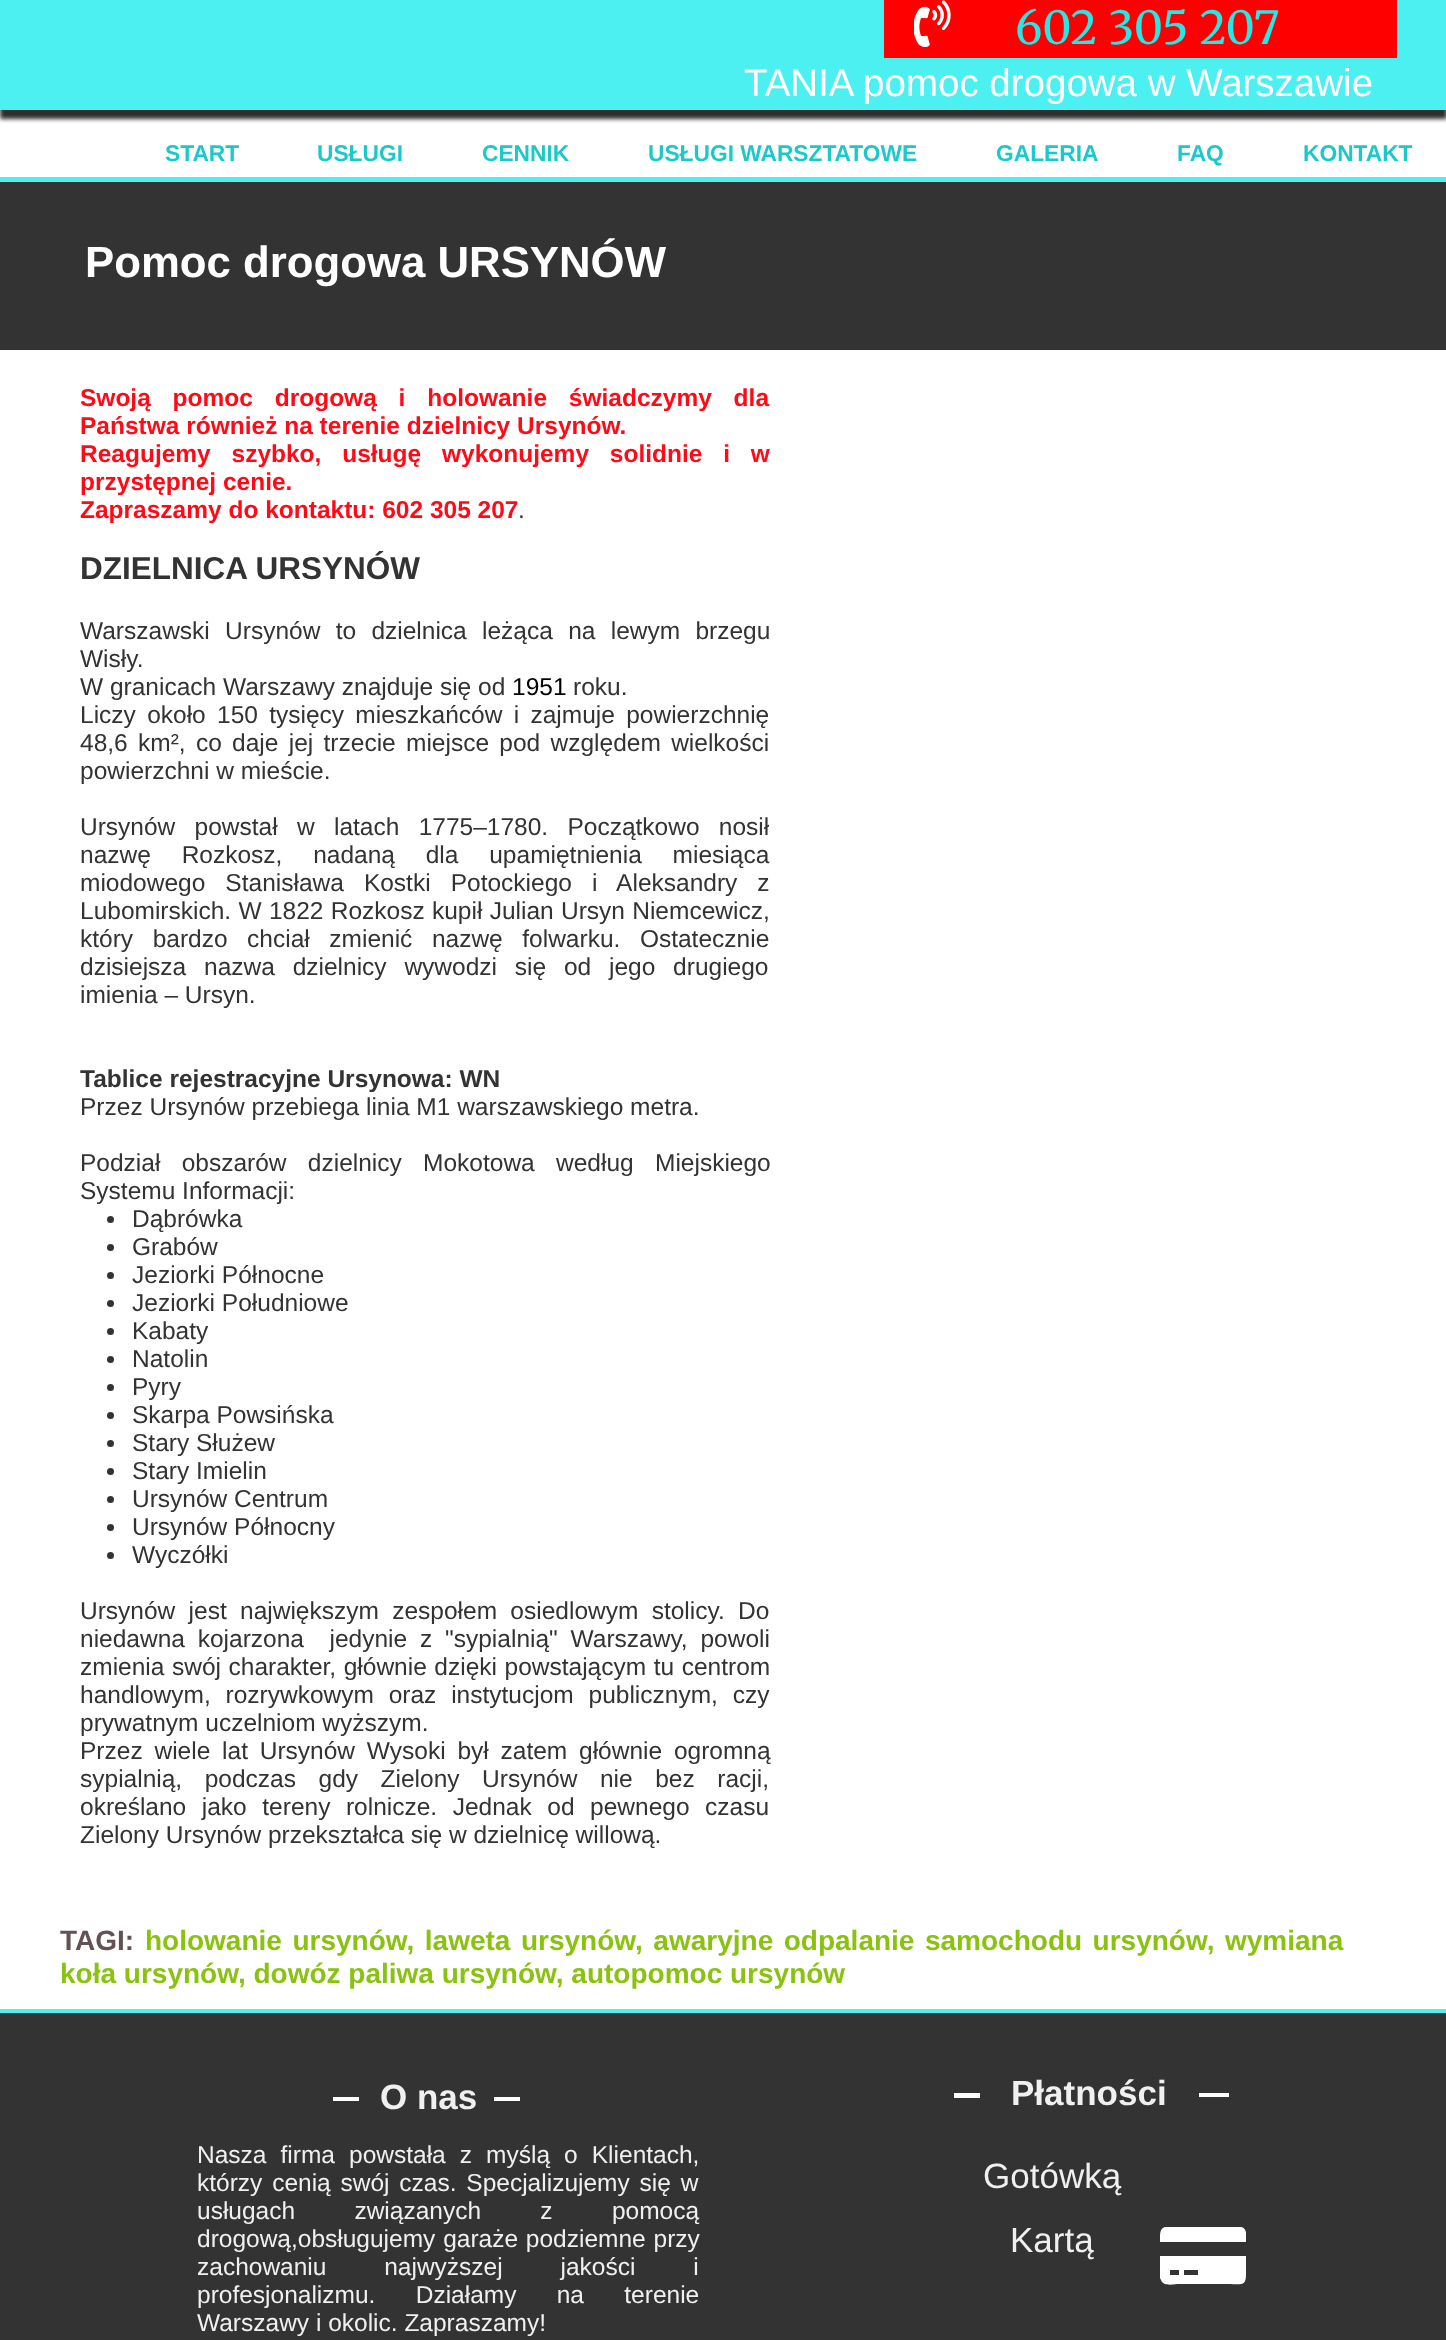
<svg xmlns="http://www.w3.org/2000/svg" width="1446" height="2340">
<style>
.a{font:45.5px Merriweather;fill:#27e6e6}
.b{font:38.5px Liberation Sans;fill:#fff}
.c{font:bold 22.75px Liberation Sans;fill:#1cc9c9}
.d{font:bold 43.75px Liberation Sans;fill:#fff}
.e{font:bold 24.5px Liberation Sans;fill:#ff0a16}
.f{font:24.5px Liberation Sans;fill:#333}
.g{font:bold 31.5px Liberation Sans;fill:#333}
.h{font:24.5px Liberation Sans;fill:#000}
.i{font:bold 24.5px Liberation Sans;fill:#333}
.j{font:bold 28px Liberation Sans;fill:#615353}
.k{font:bold 28px Liberation Sans;fill:#89c20f}
.l{font:bold 35px Liberation Sans;fill:#f0f0f0}
.m{font:24.5px Liberation Sans;fill:#f0f0f0}
.n{font:35px Liberation Sans;fill:#f0f0f0}
</style>
<defs>
<clipPath id="clip1"><path d="M1160 2223h86v68H1160z"/></clipPath>
</defs>
<rect width="100%" height="100%" fill="#fff"/>
<path fill="#2e2e2e" filter="blur(2px)" d="M0 9h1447v110H0z"/>
<path fill="#4df0f0" d="M0 0h1446v110H0z"/>
<path fill="#f00" d="M884 0h513v58H884z"/>
<image href="1.png" x="914" y="0" width="37" height="47"/>
<path fill="#4df0f0" d="M0 177h1446v5H0z"/>
<path fill="#333" d="M0 182h1446v168H0z"/>
<circle fill="#333" cx="110.5" cy="1219.5" r="3.5"/>
<circle fill="#333" cx="110.5" cy="1247.5" r="3.5"/>
<circle fill="#333" cx="110.5" cy="1275.5" r="3.5"/>
<circle fill="#333" cx="110.5" cy="1303.5" r="3.5"/>
<circle fill="#333" cx="110.5" cy="1331.5" r="3.5"/>
<circle fill="#333" cx="110.5" cy="1359.5" r="3.5"/>
<circle fill="#333" cx="110.5" cy="1387.5" r="3.5"/>
<circle fill="#333" cx="110.5" cy="1415.5" r="3.5"/>
<circle fill="#333" cx="110.5" cy="1443.5" r="3.5"/>
<circle fill="#333" cx="110.5" cy="1471.5" r="3.5"/>
<circle fill="#333" cx="110.5" cy="1499.5" r="3.5"/>
<circle fill="#333" cx="110.5" cy="1527.5" r="3.5"/>
<circle fill="#333" cx="110.5" cy="1555.5" r="3.5"/>
<path fill="#333" d="M0 2013h1446v327H0z"/>
<path fill="#4df0f0" d="M0 2009h1446v4H0z"/>
<path fill="#fff" d="M954 2093h26v5H954z"/>
<path fill="#fff" d="M1199 2093h30v4H1199z"/>
<path fill="#fff" d="M333 2097h26v4H333z"/>
<path fill="#fff" d="M494 2097h26v4H494z"/>
<g clip-path="url(#clip1)">
<path fill="#fff" d="M1160 2278v-22h86v19c0 12-6 9-18 9h-49c-4 0-16 3-18-4zm24-8v5h14v-5zm-14 0v5h9v-5zm70-43c8 0 6 10 6 15h-86c0-5-1-15 6-15z"/>
</g>
<text class="a" x="1015" y="44">602 305 207</text>
<text class="b" x="744" y="96">TANIA pomoc drogowa w Warszawie</text>
<text class="c" x="165" y="161">START</text>
<text class="c" x="317" y="161">USŁUGI</text>
<text class="c" x="482" y="161">CENNIK</text>
<text class="c" x="648" y="161">USŁUGI WARSZTATOWE</text>
<text class="c" x="996" y="161">GALERIA</text>
<text class="c" x="1177" y="161">FAQ</text>
<text class="c" x="1303" y="161">KONTAKT</text>
<text class="d" x="85" y="277">Pomoc drogowa URSYNÓW</text>
<text class="e" x="80" y="406" word-spacing="15">Swoją pomoc drogową i holowanie świadczymy dla</text>
<text class="e" x="80" y="434">Państwa również na terenie dzielnicy Ursynów.</text>
<text class="e" x="80" y="462" word-spacing="14">Reagujemy szybko, usługę wykonujemy solidnie i w</text>
<text class="e" x="80" y="490">przystępnej cenie.</text>
<text class="e" x="80" y="518">Zapraszamy do kontaktu: 602 305 207</text>
<text class="f" x="518" y="518">.</text>
<text class="g" x="80" y="579">DZIELNICA URSYNÓW</text>
<text class="f" x="80" y="639" word-spacing="8.5">Warszawski Ursynów to dzielnica leżąca na lewym brzegu</text>
<text class="f" x="80" y="667">Wisły.</text>
<text class="f" x="80" y="695">W granicach Warszawy znajduje się od</text>
<text class="h" x="512" y="695">1951</text>
<text class="f" x="573" y="695">roku.</text>
<text class="f" x="80" y="723" word-spacing="4.5">Liczy około 150 tysięcy mieszkańców i zajmuje powierzchnię</text>
<text class="f" x="80" y="751" word-spacing="3.5">48,6 km², co daje jej trzecie miejsce pod względem wielkości</text>
<text class="f" x="80" y="779">powierzchni w mieście.</text>
<text class="f" x="80" y="835" word-spacing="12.5">Ursynów powstał w latach 1775–1780. Początkowo nosił</text>
<text class="f" x="80" y="863" word-spacing="24">nazwę Rozkosz, nadaną dla upamiętnienia miesiąca</text>
<text class="f" x="80" y="891" word-spacing="13.25">miodowego Stanisława Kostki Potockiego i Aleksandry z</text>
<text class="f" x="80" y="919" word-spacing="0.5">Lubomirskich. W 1822 Rozkosz kupił Julian Ursyn Niemcewicz,</text>
<text class="f" x="80" y="947" word-spacing="12.75">który bardzo chciał zmienić nazwę folwarku. Ostatecznie</text>
<text class="f" x="80" y="975" word-spacing="11">dzisiejsza nazwa dzielnicy wywodzi się od jego drugiego</text>
<text class="f" x="80" y="1003">imienia – Ursyn.</text>
<text class="i" x="80" y="1087">Tablice rejestracyjne Ursynowa: WN</text>
<text class="f" x="80" y="1115">Przez Ursynów przebiega linia M1 warszawskiego metra.</text>
<text class="f" x="80" y="1171" word-spacing="14.5">Podział obszarów dzielnicy Mokotowa według Miejskiego</text>
<text class="f" x="80" y="1199">Systemu Informacji:</text>
<text class="f" x="132" y="1227">Dąbrówka</text>
<text class="f" x="132" y="1255">Grabów</text>
<text class="f" x="132" y="1283">Jeziorki Północne</text>
<text class="f" x="132" y="1311">Jeziorki Południowe</text>
<text class="f" x="132" y="1339">Kabaty</text>
<text class="f" x="132" y="1367">Natolin</text>
<text class="f" x="132" y="1395">Pyry</text>
<text class="f" x="132" y="1423">Skarpa Powsińska</text>
<text class="f" x="132" y="1451">Stary Służew</text>
<text class="f" x="132" y="1479">Stary Imielin</text>
<text class="f" x="132" y="1507">Ursynów Centrum</text>
<text class="f" x="132" y="1535">Ursynów Północny</text>
<text class="f" x="132" y="1563">Wyczółki</text>
<text class="f" x="80" y="1619" word-spacing="6.5">Ursynów jest największym zespołem osiedlowym stolicy. Do</text>
<text class="f" xml:space="preserve" x="80" y="1647" word-spacing="6">niedawna kojarzona  jedynie z "sypialnią" Warszawy, powoli</text>
<text class="f" x="80" y="1675" word-spacing="0.75">zmienia swój charakter, głównie dzięki powstającym tu centrom</text>
<text class="f" x="80" y="1703" word-spacing="8">handlowym, rozrywkowym oraz instytucjom publicznym, czy</text>
<text class="f" x="80" y="1731">prywatnym uczelniom wyższym.</text>
<text class="f" x="80" y="1759" word-spacing="5">Przez wiele lat Ursynów Wysoki był zatem głównie ogromną</text>
<text class="f" x="80" y="1787" word-spacing="15.75">sypialnią, podczas gdy Zielony Ursynów nie bez racji,</text>
<text class="f" x="80" y="1815" word-spacing="8.75">określano jako tereny rolnicze. Jednak od pewnego czasu</text>
<text class="f" x="80" y="1843">Zielony Ursynów przekształca się w dzielnicę willową.</text>
<text class="j" x="60" y="1950">TAGI:</text>
<text class="k" x="145" y="1950" word-spacing="2.75">holowanie ursynów, laweta ursynów, awaryjne odpalanie samochodu ursynów, wymiana</text>
<text class="k" x="60" y="1983">koła ursynów, dowóz paliwa ursynów, autopomoc ursynów</text>
<text class="l" x="380" y="2109">O nas</text>
<text class="l" x="1011" y="2105">Płatności</text>
<text class="m" x="197" y="2163" word-spacing="7.25">Nasza firma powstała z myślą o Klientach,</text>
<text class="m" x="197" y="2191" word-spacing="3">którzy cenią swój czas. Specjalizujemy się w</text>
<text class="m" x="197" y="2219" word-spacing="52.5">usługach związanych z pomocą</text>
<text class="m" x="197" y="2247" word-spacing="1">drogową,obsługujemy garaże podziemne przy</text>
<text class="m" x="197" y="2275" word-spacing="51">zachowaniu najwyższej jakości i</text>
<text class="m" x="197" y="2303" word-spacing="33.5">profesjonalizmu. Działamy na terenie</text>
<text class="m" x="197" y="2331">Warszawy i okolic. Zapraszamy!</text>
<text class="n" x="983" y="2188">Gotówką</text>
<text class="n" x="1010" y="2252">Kartą</text>
</svg>
